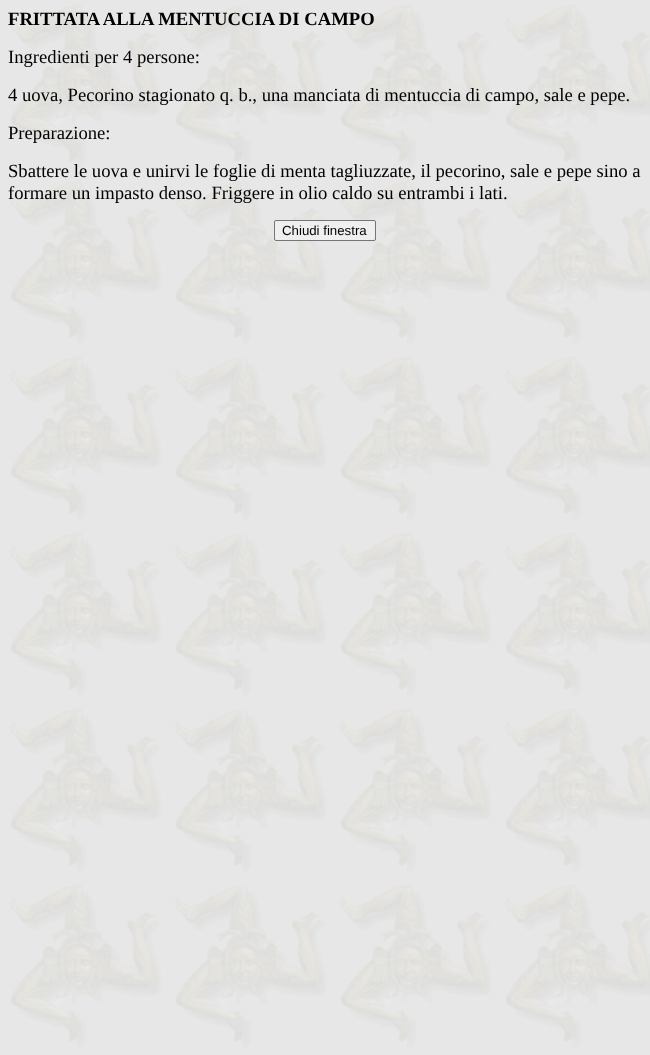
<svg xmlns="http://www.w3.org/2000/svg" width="650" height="1055">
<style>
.a{font:bold 18.65px Liberation Serif;fill:#000}
.b{font:18.65px Liberation Serif;fill:#000}
.c{font:13.25px Liberation Sans;fill:#000}
</style>
<rect width="100%" height="100%" fill="#fff"/>
<image href="1.png" x="0" y="0" width="650" height="1055"/>
<rect fill="#efefef" stroke="#767676" x="274.5" y="220.5" width="101" height="20" rx="1.5"/>
<text class="a" x="8" y="25">FRITTATA ALLA MENTUCCIA DI CAMPO</text>
<text class="b" x="8" y="63">Ingredienti per 4 persone:</text>
<text class="b" x="8" y="101">4 uova, Pecorino stagionato q. b., una manciata di mentuccia di campo, sale e pepe.</text>
<text class="b" x="8" y="139">Preparazione:</text>
<text class="b" x="8" y="177">Sbattere le uova e unirvi le foglie di menta tagliuzzate, il pecorino, sale e pepe sino a</text>
<text class="b" x="8" y="199">formare un impasto denso. Friggere in olio caldo su entrambi i lati.</text>
<text class="c" x="282" y="235">Chiudi finestra</text>
</svg>
